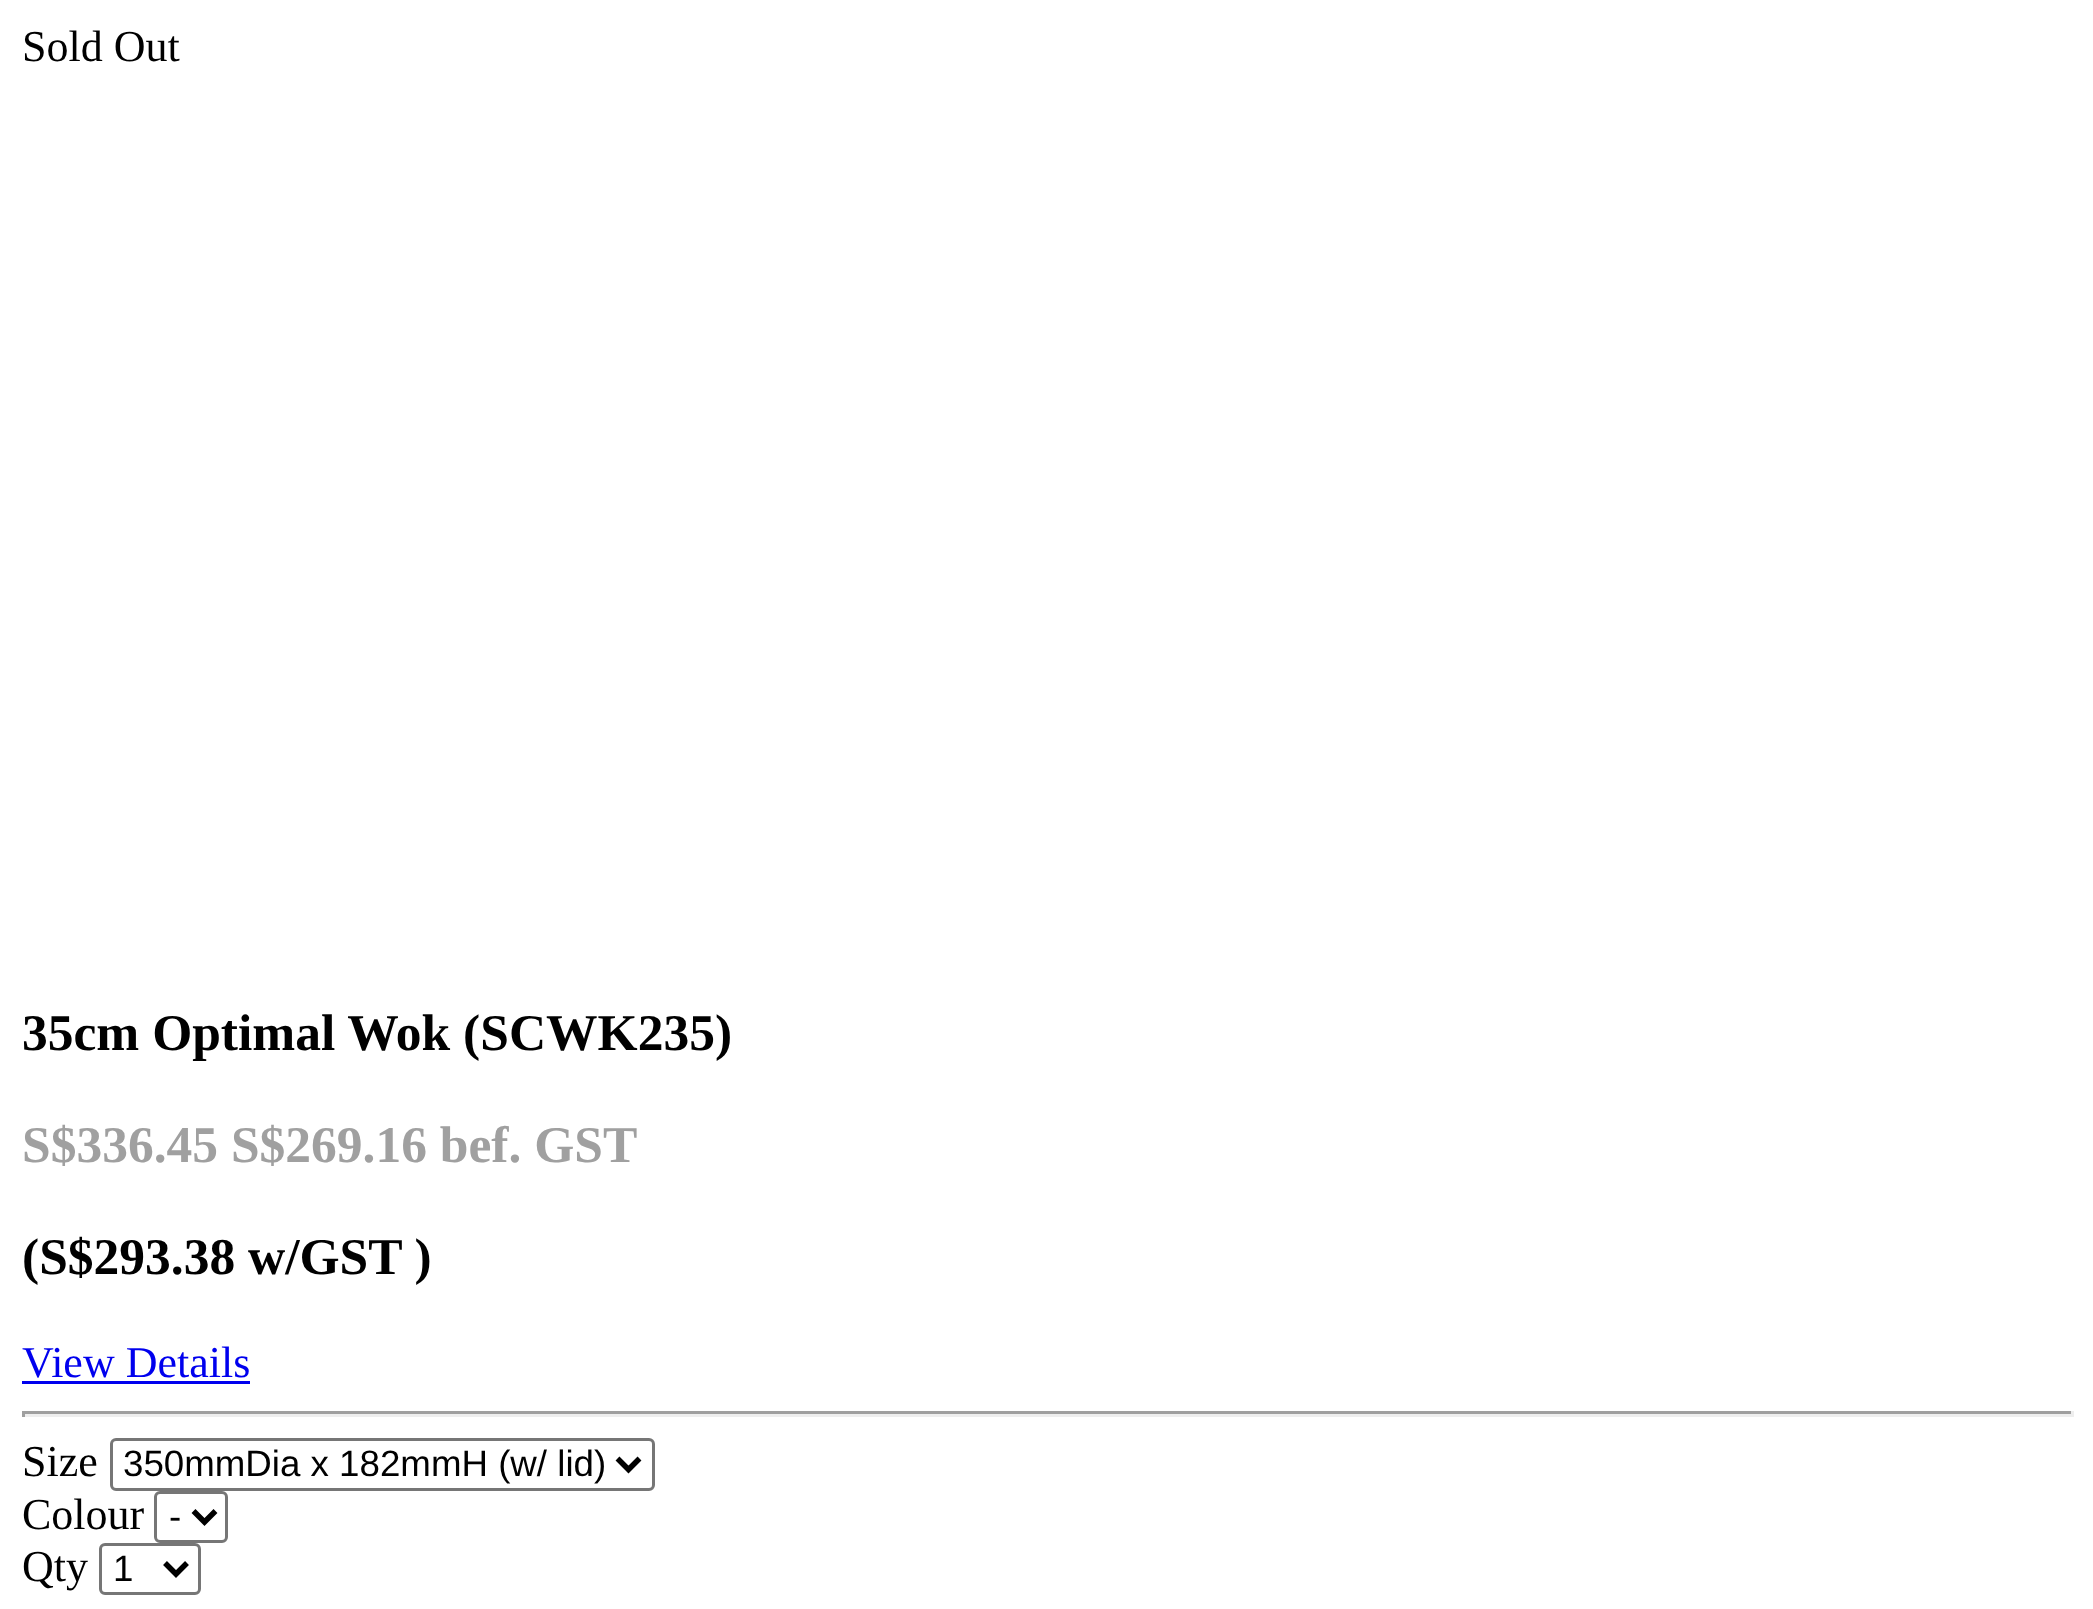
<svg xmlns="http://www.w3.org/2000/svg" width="2093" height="1609">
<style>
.a{font:44px Liberation Serif;fill:#000}
.b{font:bold 51.5px Liberation Serif;fill:#000}
.c{font:bold 51.5px Liberation Serif;fill:#a0a0a0}
.d{font:44px Liberation Serif;fill:#00e}
.e{font:36.7px Liberation Sans;fill:#000}
</style>
<rect width="100%" height="100%" fill="#fff"/>
<path fill="#00e" d="M22 1381h228v3H22z"/>
<path fill="#9f9f9f" d="M22 1411h2052v3H22z"/>
<path fill="#eee" d="M2071 1411h3v6H2071z"/>
<path fill="#eee" d="M22 1414h2052v3H22z"/>
<path fill="#9f9f9f" d="M22 1411h3v6H22z"/>
<rect fill="none" stroke="#767676" stroke-width="3" x="111.5" y="1439.5" width="542" height="50" rx="4.5"/>
<path fill="none" stroke="#000" stroke-width="5.5" d="M617.5 1458.5l11 11l11-11"/>
<rect fill="none" stroke="#767676" stroke-width="3" x="155.5" y="1492.5" width="71" height="49" rx="4.5"/>
<path fill="none" stroke="#000" stroke-width="5.5" d="M193.5 1511l11 11l11-11"/>
<rect fill="none" stroke="#767676" stroke-width="3" x="100.5" y="1544.5" width="99" height="49" rx="4.5"/>
<path fill="none" stroke="#000" stroke-width="5.5" d="M165 1563l11 11l11-11"/>
<text class="a" x="22" y="61">Sold Out</text>
<text class="b" x="22" y="1050">35cm Optimal Wok (SCWK235)</text>
<text class="c" x="22" y="1162">S$336.45 S$269.16 bef. GST</text>
<text class="b" x="22" y="1274">(S$293.38 w/GST )</text>
<text class="d" x="22" y="1377">View Details</text>
<text class="a" x="22" y="1476">Size</text>
<text class="e" x="123" y="1476">350mmDia x 182mmH (w/ lid)</text>
<text class="a" x="22" y="1529">Colour</text>
<text class="e" x="169" y="1529">-</text>
<text class="a" x="22" y="1581">Qty</text>
<text class="e" x="113" y="1581">1</text>
</svg>
